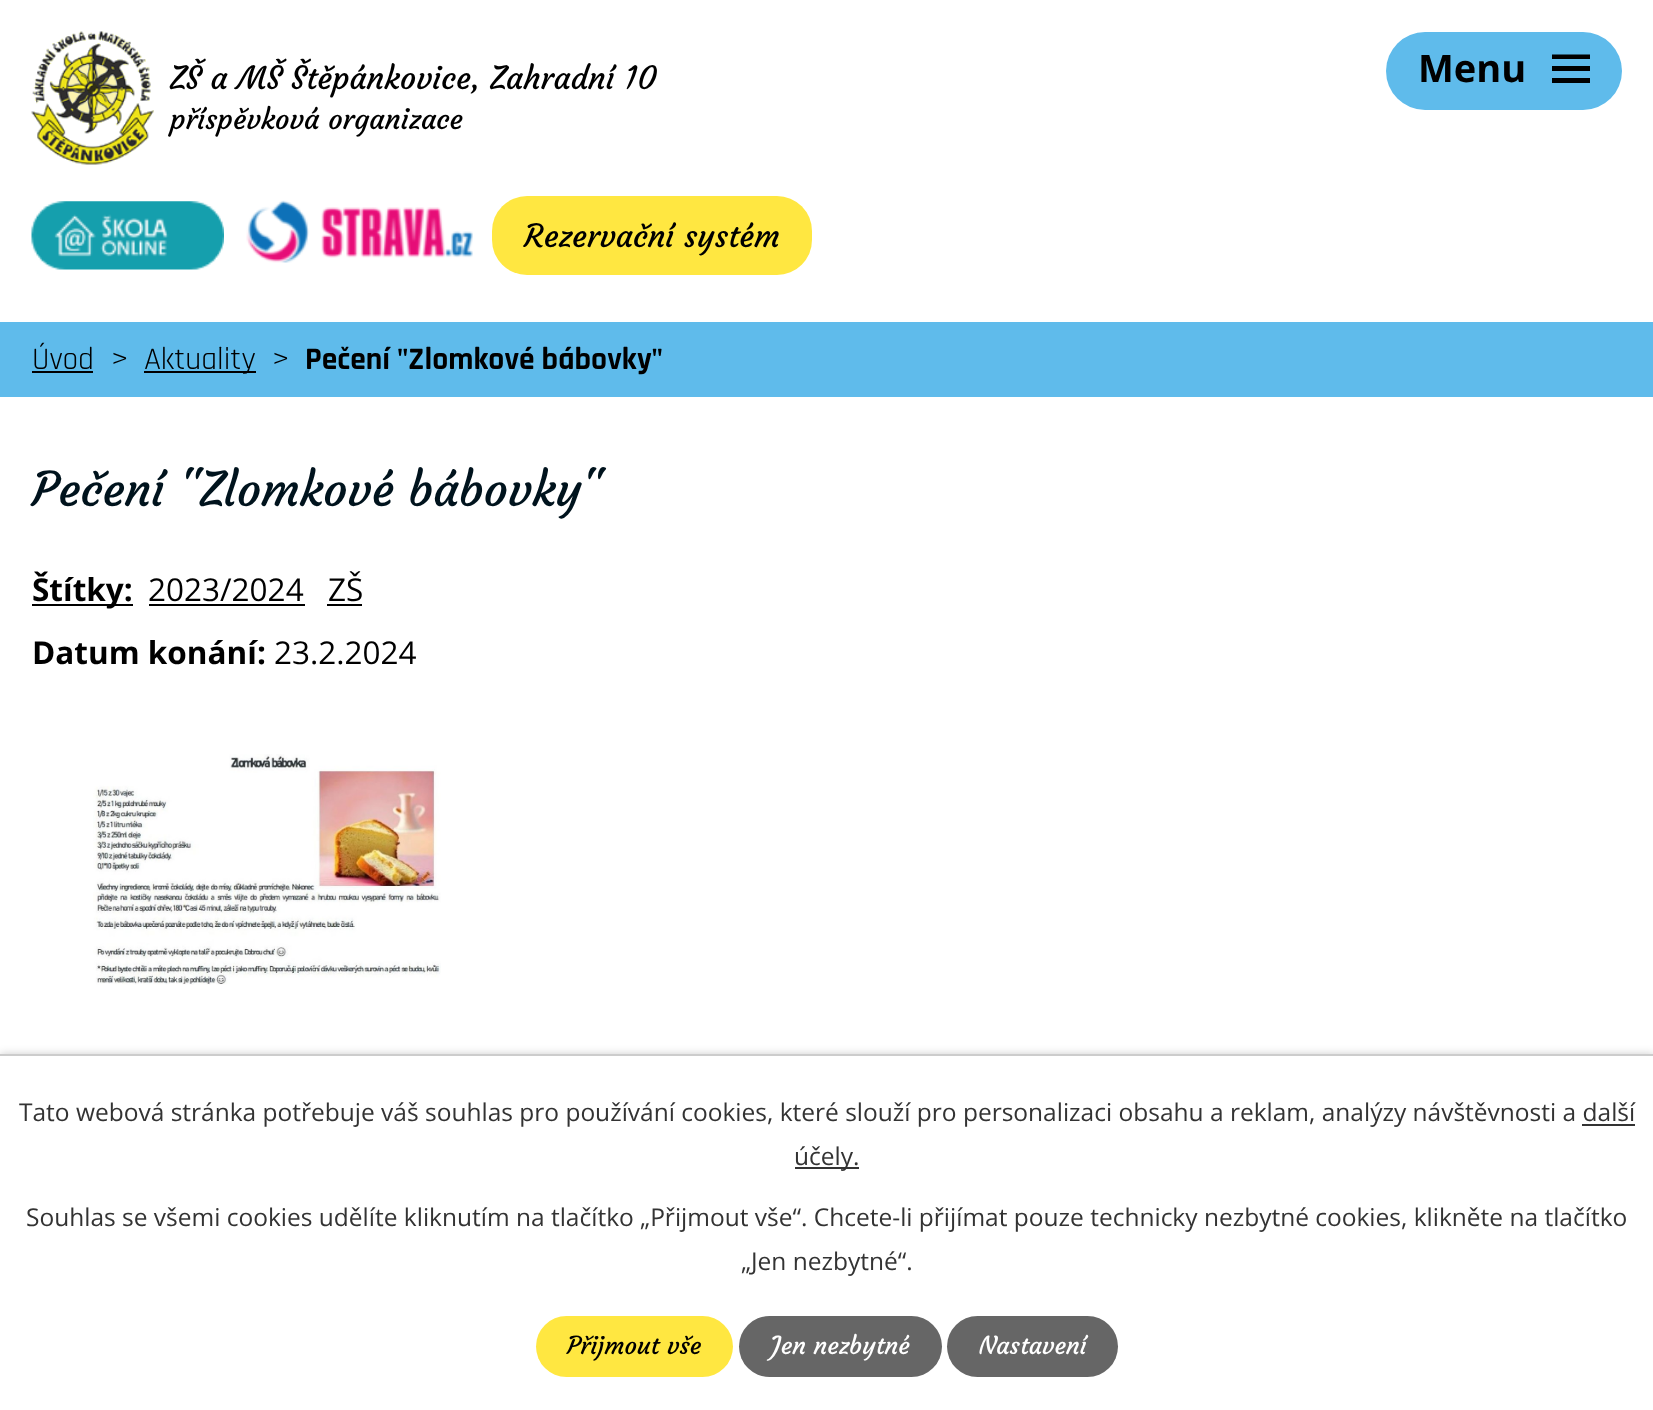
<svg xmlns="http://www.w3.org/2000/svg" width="1653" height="1410">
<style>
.a{font:31.5px Courgette;fill:#000}
.b{font:28.4px Courgette;fill:#000}
.c{font:bold 38px Open Sans;fill:#000}
.d{font:31.5px Rajdhani;fill:#000}
.e{font:33px Rajdhani;fill:#000}
.f{font:bold 31.5px Rajdhani;fill:#000}
.g{font:47.25px Courgette;fill:#00131d}
.h{font:bold 31.5px Open Sans;fill:#000}
.i{font:31.5px Open Sans;fill:#000}
.j{font:24.5px Open Sans;fill:#333}
.k{font:24.5px Courgette;fill:#000}
.l{font:24.5px Courgette;fill:#fff}
</style>
<rect width="100%" height="100%" fill="#fff"/>
<image href="1.png" x="31" y="31" width="123" height="134"/>
<image href="2.png" x="31" y="201" width="193" height="69"/>
<image href="3.png" x="246" y="200" width="227" height="63"/>
<rect fill="#ffe741" x="492" y="196" width="320" height="79" rx="35"/>
<rect fill="#5fbbeb" x="1386" y="32" width="236" height="78" rx="39"/>
<path fill="#000" d="M1552 83v-5h38v5zm0-28.5h38v4.5h-38zm0 16.5v-5h38v5z"/>
<path fill="#5fbbeb" d="M0 322h1653v75H0z"/>
<path fill="#000" d="M32 371h61v2H32z"/>
<path fill="#000" d="M144 371h112v2H144z"/>
<path fill="#000" d="M32 604h101v2H32z"/>
<path fill="#000" d="M149 604h156v2H149z"/>
<path fill="#000" d="M327 604h35v2H327z"/>
<image href="4.png" x="93" y="754" width="348" height="231"/>
<path fill="#00000033" filter="blur(4.5px)" d="M0 1054h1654v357H0z"/>
<path fill="#fff" d="M0 1056h1653v354H0z"/>
<path fill="#ccc" d="M0 1054h1653v2H0z"/>
<path fill="#333" d="M1582 1124h53v2H1582z"/>
<path fill="#333" d="M795 1167h64v2H795z"/>
<rect fill="#ffe741" x="536" y="1316" width="197" height="61" rx="30.5"/>
<rect fill="#666" x="739" y="1316" width="203" height="61" rx="30.5"/>
<rect fill="#666" x="947" y="1316" width="171" height="61" rx="30.5"/>
<text class="a" x="170" y="89">ZŠ a MŠ Štěpánkovice, Zahradní 10</text>
<text class="b" x="170" y="129">příspěvková organizace</text>
<text class="a" x="524" y="247">Rezervační systém</text>
<text class="c" x="1418" y="82">Menu</text>
<text class="d" x="32" y="369">Úvod</text>
<text class="e" x="111" y="369">&gt;</text>
<text class="d" x="144" y="369">Aktuality</text>
<text class="e" x="272" y="369">&gt;</text>
<text class="f" x="305" y="369">Pečení "Zlomkové bábovky"</text>
<text class="g" x="32" y="506">Pečení "Zlomkové bábovky"</text>
<text class="h" x="32" y="601">Štítky:</text>
<text class="i" x="148" y="601">2023/2024</text>
<text class="i" x="328" y="601">ZŠ</text>
<text class="h" x="32" y="664">Datum konání:</text>
<text class="i" x="274" y="664">23.2.2024</text>
<text class="j" x="19" y="1121">Tato webová stránka potřebuje váš souhlas pro používání cookies, které slouží pro personalizaci obsahu a reklam, analýzy návštěvnosti a další</text>
<text class="j" x="794" y="1165">účely.</text>
<text class="j" x="26" y="1226">Souhlas se všemi cookies udělíte kliknutím na tlačítko „Přijmout vše“. Chcete-li přijímat pouze technicky nezbytné cookies, klikněte na tlačítko</text>
<text class="j" x="741" y="1270">„Jen nezbytné“.</text>
<text class="k" x="567" y="1354">Přijmout vše</text>
<text class="l" x="771" y="1354">Jen nezbytné</text>
<text class="l" x="979" y="1354">Nastavení</text>
</svg>
